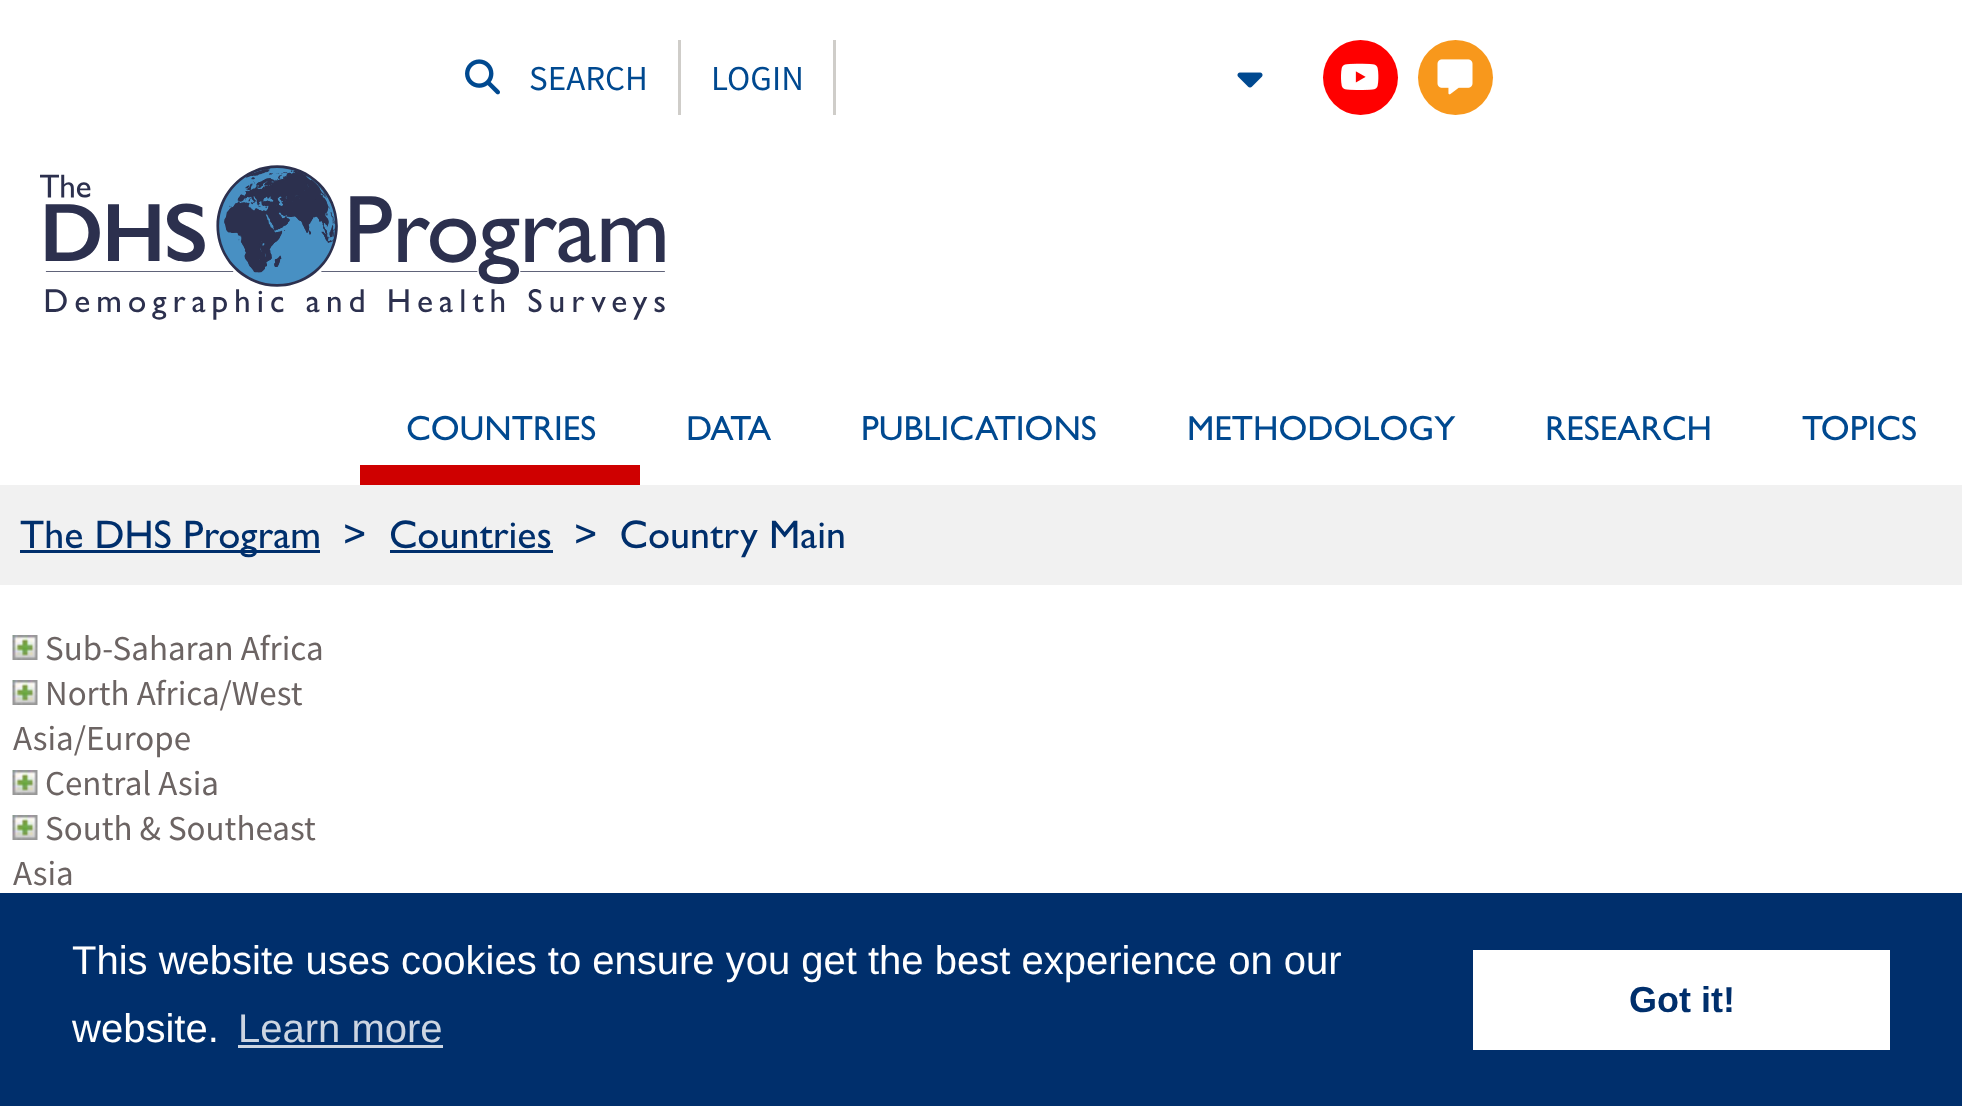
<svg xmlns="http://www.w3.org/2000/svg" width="1962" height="1106">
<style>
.a{font:35px Source Sans Pro;fill:#004990}
.b{font:35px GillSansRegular;fill:#004990}
.c{font:40px GillSansRegular;fill:#002f6c}
.d{font:35px Source Sans Pro;fill:#6c6463}
.e{font:40px Liberation Sans;fill:#fff}
.f{font:40px Liberation Sans;fill:#ccd5e2}
.g{font:bold 36px Liberation Sans;fill:#002f6c}
</style>
<rect width="100%" height="100%" fill="#fff"/>
<path fill="#cfcdc9" d="M678 40h3v75H678z"/>
<image href="1.png" x="465" y="59" width="35" height="36"/>
<path fill="#cfcdc9" d="M833 40h3v75H833z"/>
<image href="2.png" x="1237" y="72" width="26" height="16"/>
<circle fill="#f00" cx="1360.5" cy="77.5" r="37.5"/>
<image href="3.png" x="1341" y="63" width="38" height="27"/>
<circle fill="#f8981c" cx="1455.5" cy="77.5" r="37.5"/>
<image href="4.png" x="1437" y="59" width="36" height="36"/>
<image href="5.png" x="40" y="165" width="625" height="155"/>
<path fill="#cf0000" d="M360 465h280v20H360z"/>
<path fill="#f1f1f1" d="M0 485h1962v100H0z"/>
<path fill="#002f6c" d="M20 550h300v3H20z"/>
<path fill="#002f6c" d="M390 550h163v3H390z"/>
<image href="6.png" x="12" y="635" width="26" height="25"/>
<image href="6.png" x="12" y="680" width="26" height="25"/>
<image href="6.png" x="12" y="770" width="26" height="25"/>
<image href="6.png" x="12" y="815" width="26" height="25"/>
<path fill="#002f6c" d="M0 893h1962v213H0z"/>
<path fill="#ccd5e2" d="M238 1045h205v3H238z"/>
<path fill="#fff" d="M1473 950h417v100H1473z"/>
<text class="a" x="529" y="90">SEARCH</text>
<text class="a" x="711" y="90">LOGIN</text>
<text class="b" x="406" y="440">COUNTRIES</text>
<text class="b" x="686" y="440">DATA</text>
<text class="b" x="861" y="440">PUBLICATIONS</text>
<text class="b" x="1187" y="440">METHODOLOGY</text>
<text class="b" x="1545" y="440">RESEARCH</text>
<text class="b" x="1802" y="440">TOPICS</text>
<text class="c" x="20" y="548">The DHS Program</text>
<text class="c" x="343" y="548">&gt;</text>
<text class="c" x="389" y="548">Countries</text>
<text class="c" xml:space="preserve" x="574" y="548">&gt;  Country Main</text>
<text class="d" x="45" y="660">Sub-Saharan Africa</text>
<text class="d" x="45" y="705">North Africa/West</text>
<text class="d" x="13" y="750">Asia/Europe</text>
<text class="d" x="45" y="795">Central Asia</text>
<text class="d" x="45" y="840">South &amp; Southeast</text>
<text class="d" x="13" y="885">Asia</text>
<text class="e" x="72" y="974">This website uses cookies to ensure you get the best experience on our</text>
<text class="e" x="72" y="1042">website.</text>
<text class="f" x="238" y="1042">Learn more</text>
<text class="g" x="1629" y="1012">Got it!</text>
</svg>
